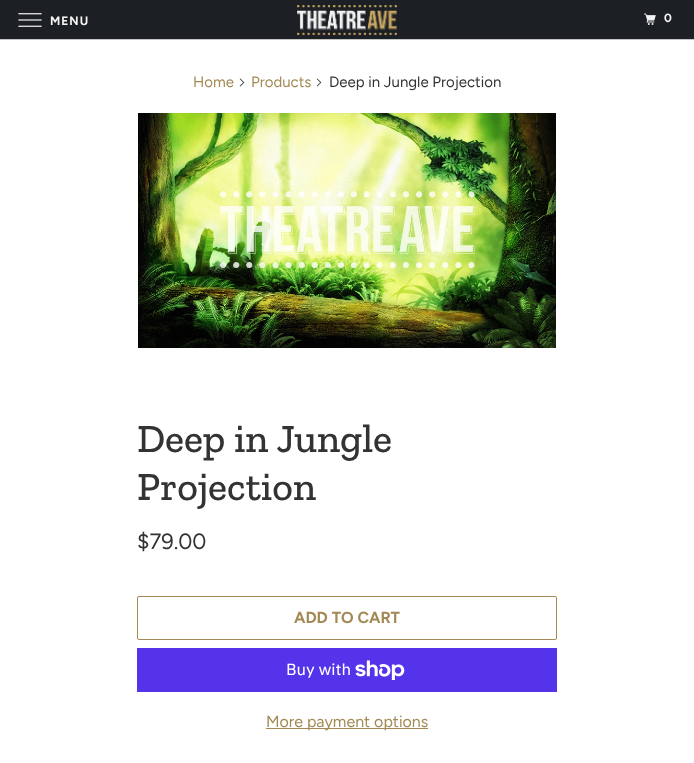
<svg xmlns="http://www.w3.org/2000/svg" width="694" height="763">
<style>
.a{font:bold 12px Figtree;letter-spacing:1px;fill:#f5f5f5}
.b{font:15px Figtree;fill:#a38a54}
.c{font:15px Figtree;fill:#333}
.d{font:500 40px Zilla Slab;fill:#333}
.e{font:22px Figtree;fill:#333}
.f{font:bold 16px Figtree;fill:#a38a54}
.g{font:16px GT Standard;fill:#fff}
.h{font:16px Figtree;fill:#a38a54}
</style>
<rect width="100%" height="100%" fill="#fff"/>
<path fill="#1c2024" d="M0 0h694v39H0z"/>
<path fill="#c5c5c5" d="M0 39h694v1H0z"/>
<image href="1.png" x="18" y="13" width="24" height="14"/>
<image href="2.png" x="297" y="5" width="100" height="30"/>
<image href="3.png" x="644" y="13" width="12" height="12"/>
<image href="4.png" x="239" y="78" width="6" height="9"/>
<image href="4.png" x="316" y="78" width="6" height="9"/>
<image href="5.png" x="138" y="113" width="418" height="235"/>
<rect fill="none" stroke="#a38a54" x="137.5" y="596.5" width="419" height="43" rx="1.5"/>
<path fill="#5433eb" d="M137 648h420v44H137z"/>
<image href="6.png" x="355" y="660" width="50" height="20"/>
<path fill="#a38a54" d="M266 728h162v1H266z"/>
<text class="a" x="50" y="25">MENU</text>
<text class="a" x="664" y="22">0</text>
<text class="b" x="193" y="87">Home</text>
<text class="b" x="251" y="87">Products</text>
<text class="c" x="329" y="87">Deep in Jungle Projection</text>
<text class="d" x="137" y="452">Deep in Jungle</text>
<text class="d" x="137" y="500">Projection</text>
<text class="e" x="137" y="549">$79.00</text>
<text class="f" x="294" y="623">ADD TO CART</text>
<text class="g" x="286" y="675">Buy with</text>
<text class="h" x="266" y="727">More payment options</text>
</svg>
